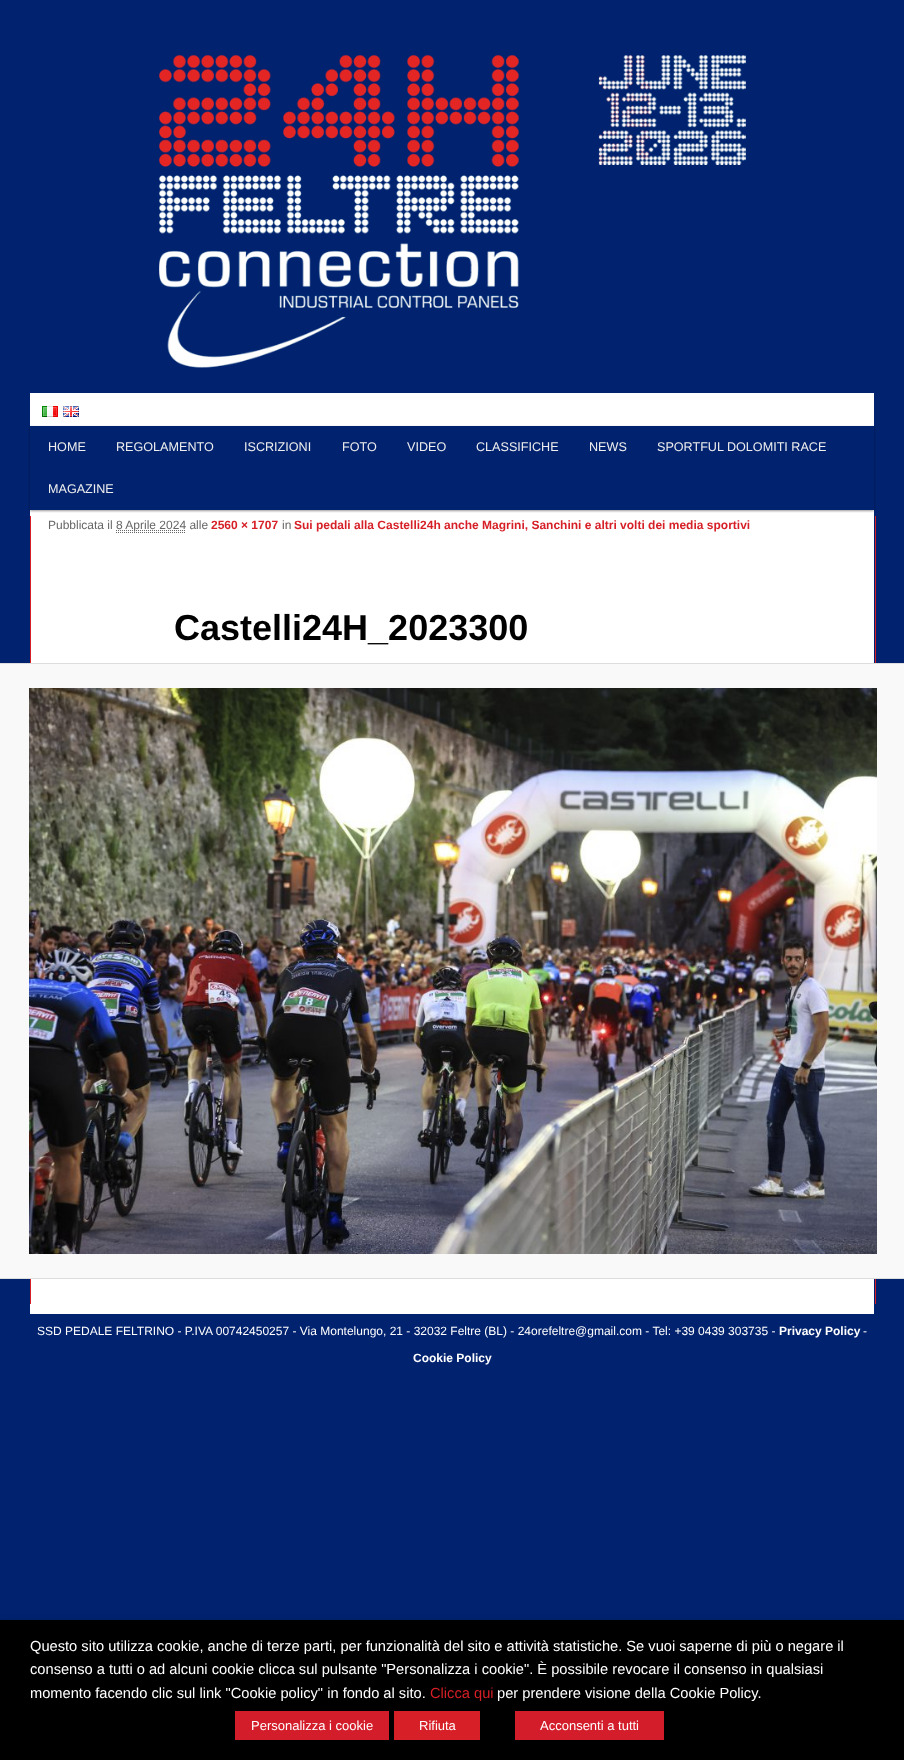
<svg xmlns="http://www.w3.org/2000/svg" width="904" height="1760">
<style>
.a{font:12.6px Liberation Sans;fill:#eee}
.b{font:12px Liberation Sans;fill:#666}
.c{font:bold 12px Liberation Sans;fill:#d61f26}
.d{font:bold 36px Liberation Sans;fill:#000}
.e{font:12px Liberation Sans;fill:#fff}
.f{font:bold 12px Liberation Sans;fill:#fff}
.g{font:14.67px Liberation Sans;fill:#fff}
.h{font:14.67px Liberation Sans;fill:#d61f26}
.i{font:13px Liberation Sans;fill:#fff}
</style>
<rect width="100%" height="100%" fill="#00226f"/>
<path fill="#fff" d="M30 393h844v921H30z"/>
<image href="1.png" x="30" y="30" width="844" height="363"/>
<image href="2.png" x="42" y="406" width="16" height="11"/>
<image href="3.png" x="63" y="406" width="16" height="11"/>
<path fill="#00000066" filter="blur(1px)" d="M30 427h844v84H30z"/>
<path fill="#00226f" d="M30 426h844v84H30z"/>
<path fill="#d61f26" d="M875 516h1v788H875z"/>
<path fill="#d61f26" d="M30 516h1v788H30z"/>
<path fill="none" stroke="#666" stroke-dasharray="1 1" d="M116 532.5h70"/>
<path fill="none" stroke="#666" stroke-dasharray="1 1" d="M116 530.5h70"/>
<path fill="#f9f9f9" d="M0 664h904v614H0z"/>
<path fill="#ddd" d="M0 663h904v1H0z"/>
<path fill="#ddd" d="M0 1278h904v1H0z"/>
<image href="4.png" x="29" y="688" width="848" height="566"/>
<path fill="#00000080" filter="blur(5px)" d="M0 1625h904v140H0z"/>
<path fill="#000" d="M0 1620h904v140H0z"/>
<path fill="#d41d2a" d="M235 1711h154v29H235z"/>
<path fill="#d61f26" d="M394 1711h86v29H394z"/>
<path fill="#d41d2a" d="M515 1711h149v29H515z"/>
<text class="a" x="48" y="451">HOME</text>
<text class="a" x="116" y="451">REGOLAMENTO</text>
<text class="a" x="244" y="451">ISCRIZIONI</text>
<text class="a" x="342" y="451">FOTO</text>
<text class="a" x="407" y="451">VIDEO</text>
<text class="a" x="476" y="451">CLASSIFICHE</text>
<text class="a" x="589" y="451">NEWS</text>
<text class="a" x="657" y="451">SPORTFUL DOLOMITI RACE</text>
<text class="a" x="48" y="493">MAGAZINE</text>
<text class="b" x="48" y="529">Pubblicata il</text>
<text class="b" x="116" y="529">8 Aprile 2024 alle</text>
<text class="c" x="211" y="529">2560 × 1707</text>
<text class="b" x="282" y="529">in</text>
<text class="c" x="294" y="529">Sui pedali alla Castelli24h anche Magrini, Sanchini e altri volti dei media sportivi</text>
<text class="d" x="174" y="640">Castelli24H_2023300</text>
<text class="e" x="37" y="1335">SSD PEDALE FELTRINO - P.IVA 00742450257 - Via Montelungo, 21 - 32032 Feltre (BL) - 24orefeltre@gmail.com - Tel: +39 0439 303735 -</text>
<text class="f" x="779" y="1335">Privacy Policy</text>
<text class="e" x="863" y="1335">-</text>
<text class="f" x="413" y="1362">Cookie Policy</text>
<text class="g" x="30" y="1651">Questo sito utilizza cookie, anche di terze parti, per funzionalità del sito e attività statistiche. Se vuoi saperne di più o negare il</text>
<text class="g" x="30" y="1674">consenso a tutti o ad alcuni cookie clicca sul pulsante "Personalizza i cookie". È possibile revocare il consenso in qualsiasi</text>
<text class="g" x="30" y="1698">momento facendo clic sul link "Cookie policy" in fondo al sito.</text>
<text class="h" x="430" y="1698">Clicca qui</text>
<text class="g" x="497" y="1698">per prendere visione della Cookie Policy.</text>
<text class="i" x="251" y="1730">Personalizza i cookie</text>
<text class="i" x="419" y="1730">Rifiuta</text>
<text class="i" x="540" y="1730">Acconsenti a tutti</text>
</svg>
